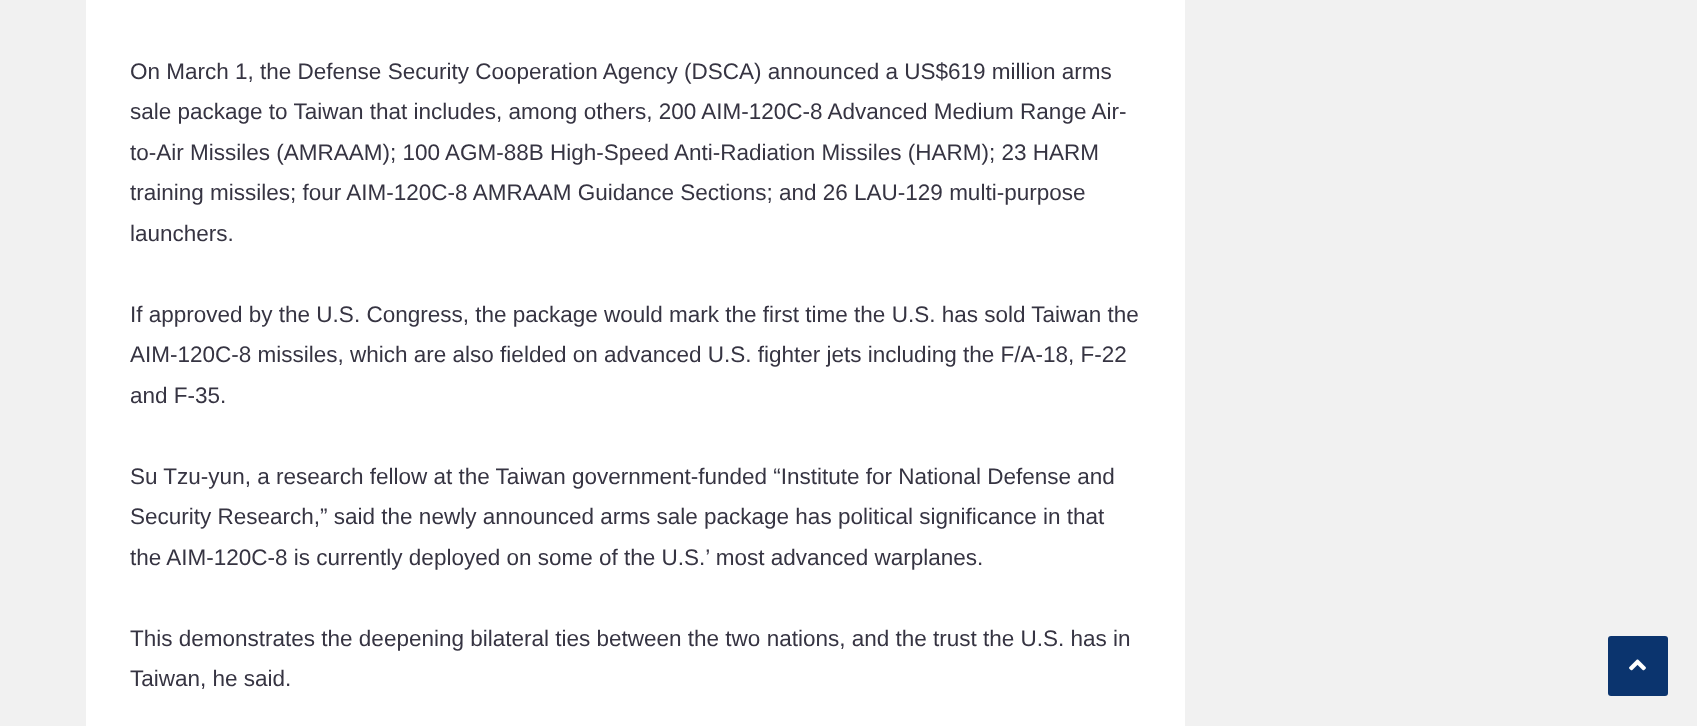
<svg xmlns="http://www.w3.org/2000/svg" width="1697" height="726">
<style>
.a{font:22.5px Liberation Sans;fill:#363442}
</style>
<rect width="100%" height="100%" fill="#f1f1f1"/>
<path fill="#fff" d="M86 0h1099v726H86z"/>
<rect fill="#0b346e" x="1608" y="636" width="60" height="60" rx="3"/>
<image href="1.png" x="1629" y="659" width="17" height="12"/>
<text class="a" x="130" y="79">On March 1, the Defense Security Cooperation Agency (DSCA) announced a US$619 million arms</text>
<text class="a" x="130" y="119">sale package to Taiwan that includes, among others, 200 AIM-120C-8 Advanced Medium Range Air-</text>
<text class="a" x="130" y="160">to-Air Missiles (AMRAAM); 100 AGM-88B High-Speed Anti-Radiation Missiles (HARM); 23 HARM</text>
<text class="a" x="130" y="200">training missiles; four AIM-120C-8 AMRAAM Guidance Sections; and 26 LAU-129 multi-purpose</text>
<text class="a" x="130" y="241">launchers.</text>
<text class="a" x="130" y="322">If approved by the U.S. Congress, the package would mark the first time the U.S. has sold Taiwan the</text>
<text class="a" x="130" y="362">AIM-120C-8 missiles, which are also fielded on advanced U.S. fighter jets including the F/A-18, F-22</text>
<text class="a" x="130" y="403">and F-35.</text>
<text class="a" x="130" y="484">Su Tzu-yun, a research fellow at the Taiwan government-funded “Institute for National Defense and</text>
<text class="a" x="130" y="524">Security Research,” said the newly announced arms sale package has political significance in that</text>
<text class="a" x="130" y="565">the AIM-120C-8 is currently deployed on some of the U.S.’ most advanced warplanes.</text>
<text class="a" x="130" y="646">This demonstrates the deepening bilateral ties between the two nations, and the trust the U.S. has in</text>
<text class="a" x="130" y="686">Taiwan, he said.</text>
</svg>
